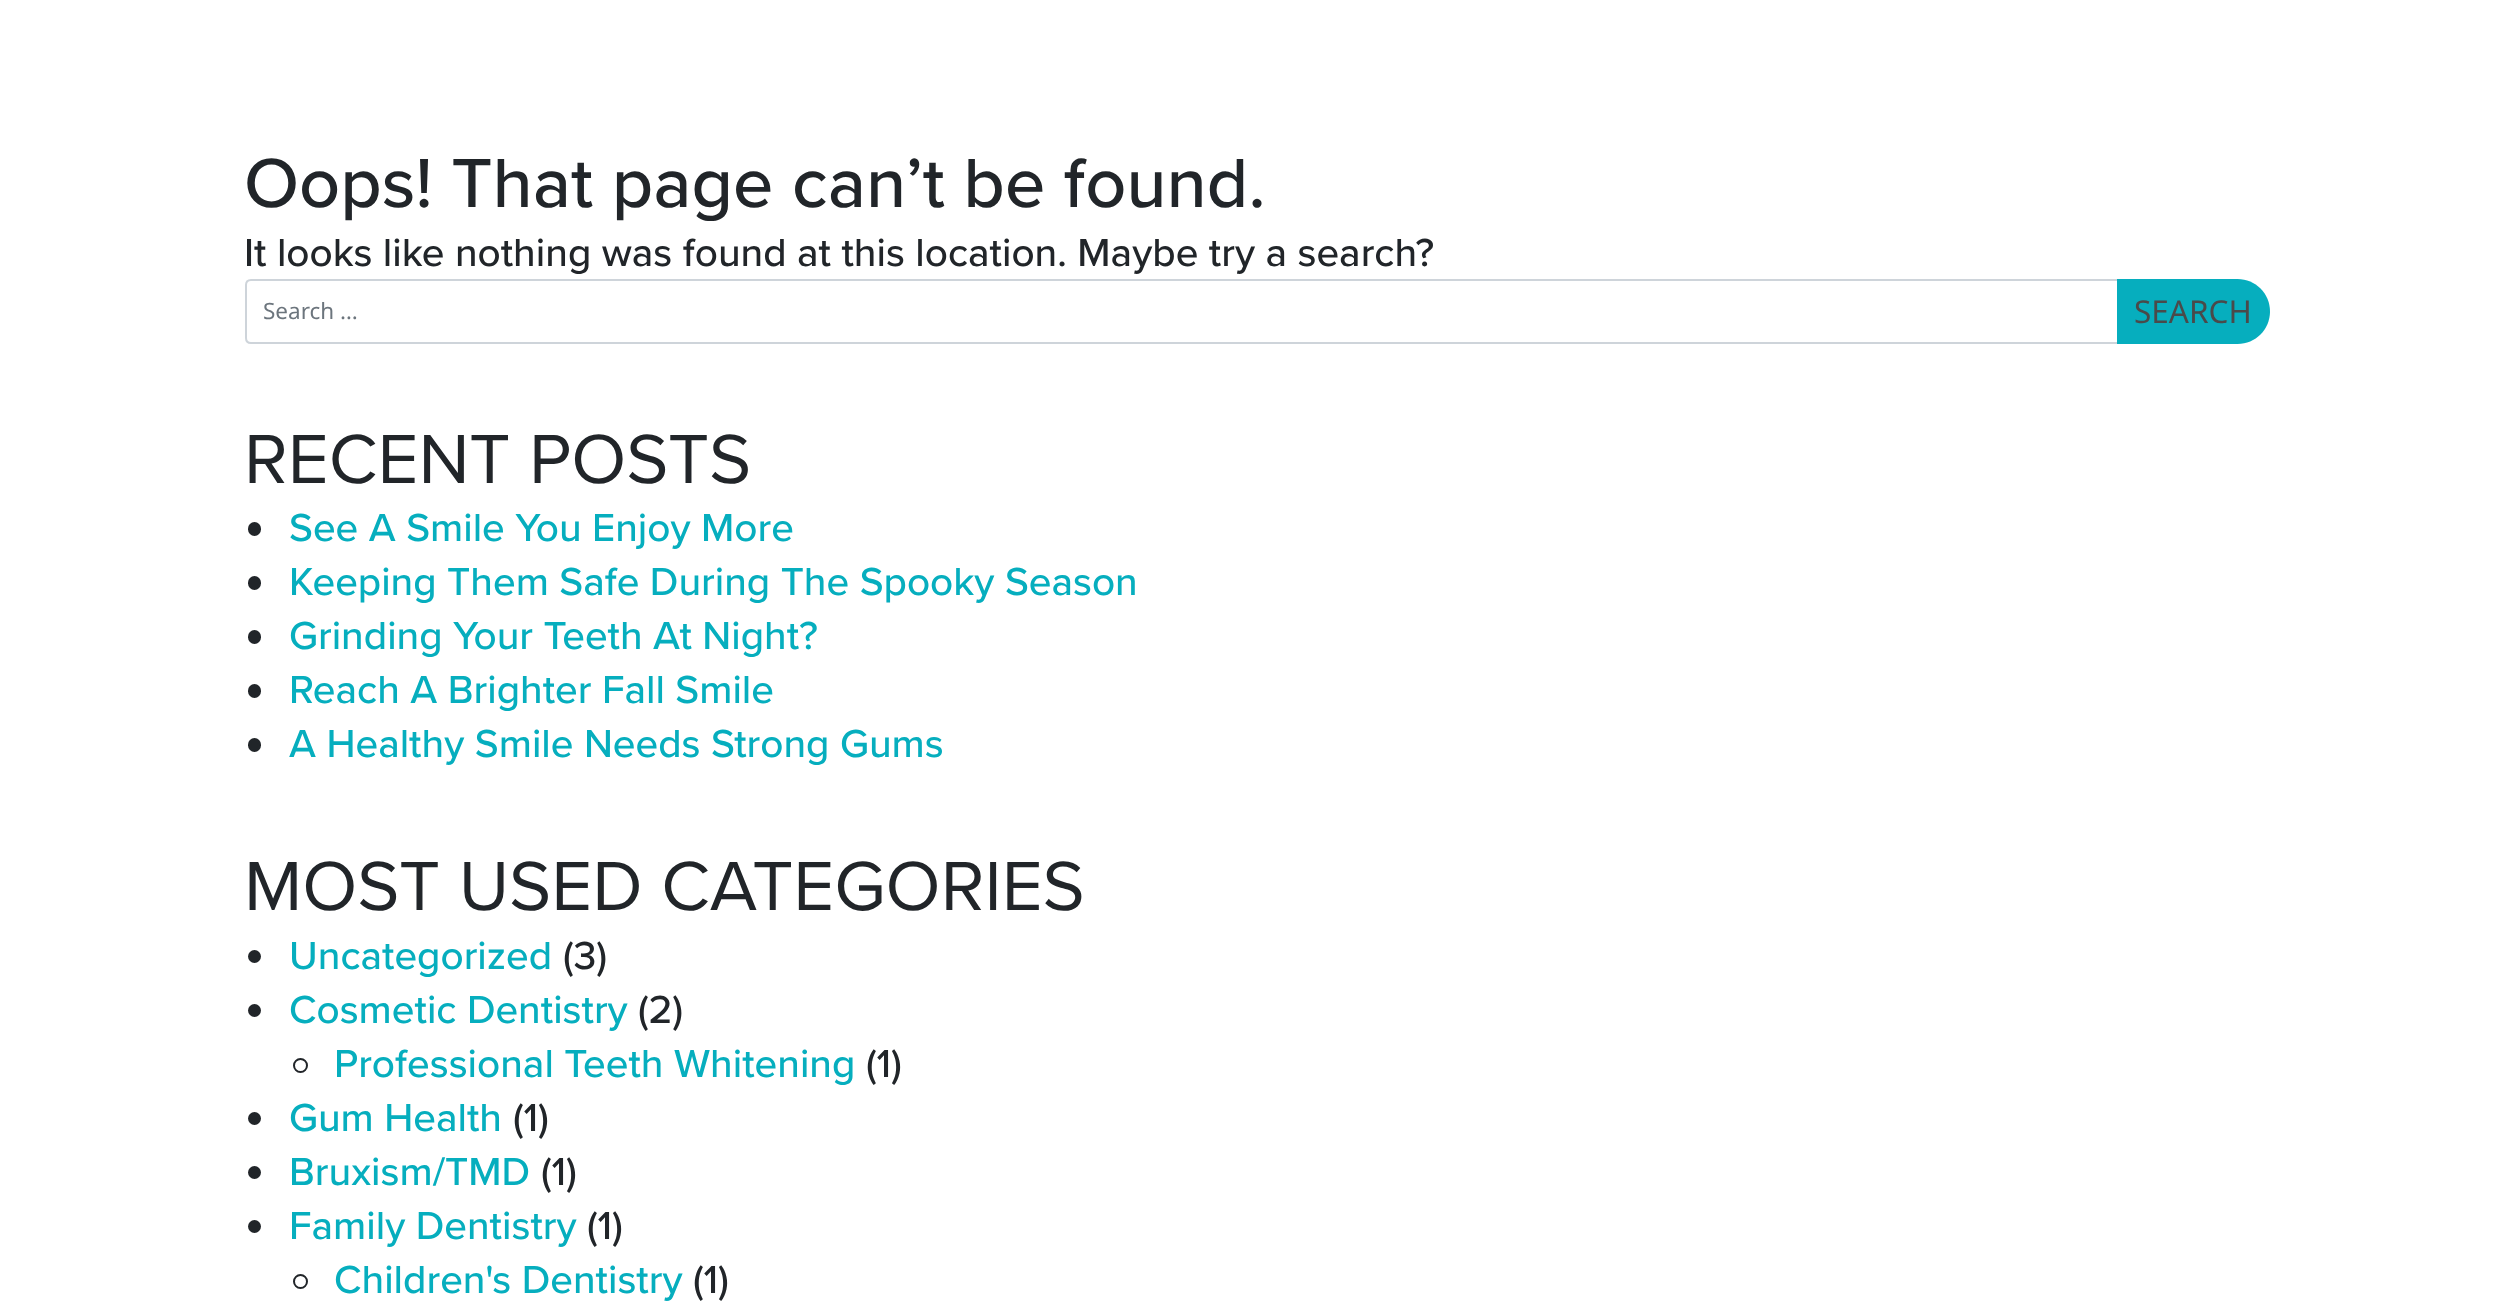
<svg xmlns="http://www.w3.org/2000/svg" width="2512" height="1308">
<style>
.a{font:500 72px Proxima Nova;fill:#212529}
.b{font:500 40.5px Proxima Nova;fill:#212529}
.c{font:22.5px Noto Sans;fill:#6c757d}
.d{font:31.5px Noto Sans;fill:#4a4a4a}
.e{font:72px Proxima Nova;fill:#212529}
.f{font:500 40.5px Proxima Nova;fill:#06aebe}
</style>
<rect width="100%" height="100%" fill="#fff"/>
<path fill="none" stroke="#ced4da" stroke-width="2" d="M251 280h1868v63h-1868c-3 0-5-2-5-5v-53c0-3 2-5 5-5z"/>
<path fill="#06aebe" d="M2117 279h120.5c18 0 32.5 14.5 32.5 32.5c0 18-14.5 32.5-32.5 32.5h-120.5z"/>
<rect fill="#212529" x="248" y="522" width="13" height="14" rx="6.5"/>
<rect fill="#212529" x="248" y="576" width="13" height="14" rx="6.5"/>
<rect fill="#212529" x="248" y="630" width="13" height="14" rx="6.5"/>
<rect fill="#212529" x="248" y="684" width="13" height="14" rx="6.5"/>
<rect fill="#212529" x="248" y="738" width="13" height="14" rx="6.5"/>
<circle fill="#212529" cx="254.5" cy="956.5" r="6.5"/>
<circle fill="#212529" cx="254.5" cy="1010.5" r="6.5"/>
<circle fill="none" stroke="#212529" stroke-width="2" cx="300.5" cy="1065.5" r="6.5"/>
<circle fill="#212529" cx="254.5" cy="1118.5" r="6.5"/>
<circle fill="#212529" cx="254.5" cy="1172.5" r="6.5"/>
<circle fill="#212529" cx="254.5" cy="1226.5" r="6.5"/>
<circle fill="none" stroke="#212529" stroke-width="2" cx="300.5" cy="1281.5" r="6.5"/>
<text class="a" x="244" y="207">Oops! That page can’t be found.</text>
<text class="b" x="244" y="266">It looks like nothing was found at this location. Maybe try a search?</text>
<text class="c" x="263" y="319">Search …</text>
<text class="d" x="2134" y="323">SEARCH</text>
<text class="e" x="244" y="483">RECENT POSTS</text>
<text class="f" x="289" y="541">See A Smile You Enjoy More</text>
<text class="f" x="289" y="595">Keeping Them Safe During The Spooky Season</text>
<text class="f" x="289" y="649">Grinding Your Teeth At Night?</text>
<text class="f" x="289" y="703">Reach A Brighter Fall Smile</text>
<text class="f" x="289" y="757">A Healthy Smile Needs Strong Gums</text>
<text class="e" x="244" y="910">MOST USED CATEGORIES</text>
<text class="f" x="289" y="969">Uncategorized</text>
<text class="b" x="563" y="969">(3)</text>
<text class="f" x="289" y="1023">Cosmetic Dentistry</text>
<text class="b" x="638" y="1023">(2)</text>
<text class="f" x="334" y="1077">Professional Teeth Whitening</text>
<text class="b" x="866" y="1077">(1)</text>
<text class="f" x="289" y="1131">Gum Health</text>
<text class="b" x="513" y="1131">(1)</text>
<text class="f" x="289" y="1185">Bruxism/TMD</text>
<text class="b" x="541" y="1185">(1)</text>
<text class="f" x="289" y="1239">Family Dentistry</text>
<text class="b" x="587" y="1239">(1)</text>
<text class="f" x="334" y="1293">Children's Dentistry</text>
<text class="b" x="693" y="1293">(1)</text>
</svg>
